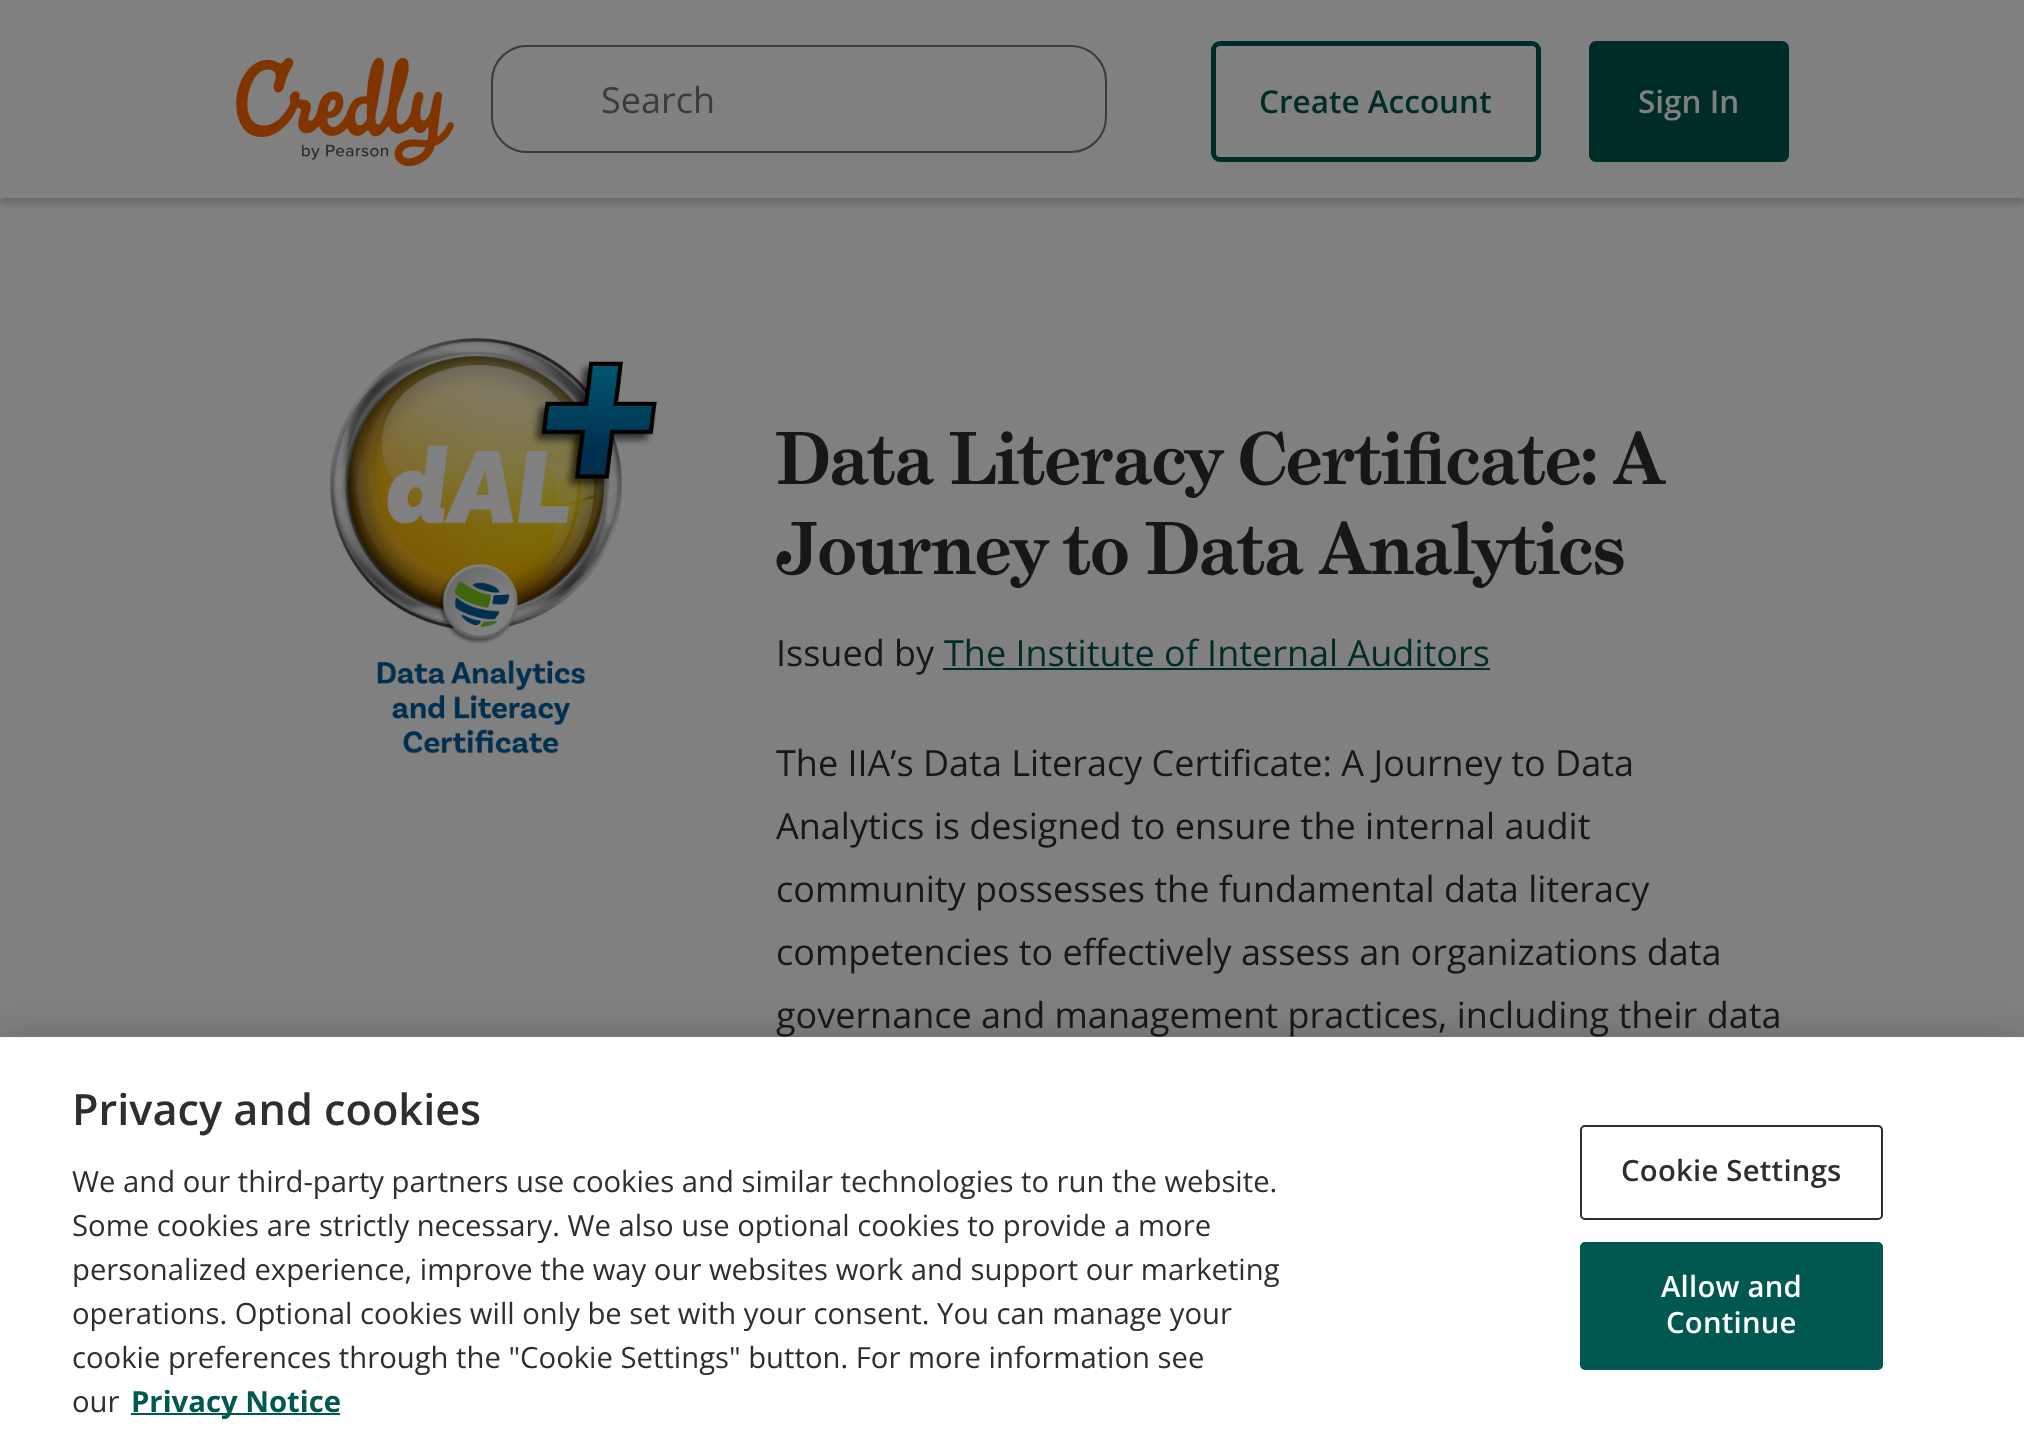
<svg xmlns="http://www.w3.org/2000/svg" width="2024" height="1445">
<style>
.a{font:36px Open Sans;fill:#3b3b3b}
.b{font:600 31.5px Open Sans;fill:#002c28}
.c{font:600 31.5px Open Sans;fill:#808080}
.d{font:bold 72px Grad;fill:#171717}
.e{font:36px Open Sans;fill:#171717}
.f{font:36px Open Sans;fill:#002c28}
.g{font:600 43.25px Open Sans;fill:#2e2e2e}
.h{font:29.25px Open Sans;fill:#2e2e2e}
.i{font:bold 29.25px Open Sans;fill:#005850}
.j{font:600 29.25px Open Sans;letter-spacing:0.25px;fill:#2e2e2e}
.k{font:600 29.25px Open Sans;letter-spacing:0.25px;fill:#fefefe}
</style>
<defs>
<clipPath id="clip1"><path d="M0 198h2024v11H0z"/></clipPath>
</defs>
<rect width="100%" height="100%" fill="#808080"/>
<g clip-path="url(#clip1)">
<path fill="#00000033" filter="blur(4.5px)" d="M0 5h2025v198H0z"/>
</g>
<image href="1.png" x="236" y="57" width="218" height="110"/>
<rect fill="none" stroke="#3a3a3a" stroke-width="2" x="492" y="46" width="614" height="106" rx="35"/>
<rect fill="none" stroke="#002c28" stroke-width="5" x="1213.5" y="43.5" width="325" height="116" rx="6.5"/>
<rect fill="#002c28" stroke="#002c28" stroke-width="5" x="1591.5" y="43.5" width="195" height="116" rx="4.5"/>
<image href="2.png" x="330" y="338" width="327" height="416"/>
<path fill="#002c28" d="M943 668h547v2H943z"/>
<path fill="#00000033" filter="blur(20px)" d="M0 1037h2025v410H0z"/>
<path fill="#fff" d="M0 1037h2024v408H0z"/>
<path fill="#005850" d="M131 1413h209v2H131z"/>
<rect fill="none" stroke="#2e2e2e" stroke-width="2" x="1581" y="1126" width="301" height="93" rx="4"/>
<rect fill="#005850" stroke="#005850" stroke-width="2" x="1581" y="1243" width="301" height="126" rx="4"/>
<text class="a" x="601" y="113">Search</text>
<text class="b" x="1259" y="113">Create Account</text>
<text class="c" x="1638" y="113">Sign In</text>
<text class="d" x="776" y="484">Data Literacy Certificate: A</text>
<text class="d" x="776" y="574">Journey to Data Analytics</text>
<text class="e" x="776" y="666">Issued by</text>
<text class="f" x="944" y="666">The Institute of Internal Auditors</text>
<text class="e" x="776" y="776">The IIA’s Data Literacy Certificate: A Journey to Data</text>
<text class="e" x="776" y="839">Analytics is designed to ensure the internal audit</text>
<text class="e" x="776" y="902">community possesses the fundamental data literacy</text>
<text class="e" x="776" y="965">competencies to effectively assess an organizations data</text>
<text class="e" x="776" y="1028">governance and management practices, including their data</text>
<text class="g" x="72" y="1125">Privacy and cookies</text>
<text class="h" x="72" y="1192">We and our third-party partners use cookies and similar technologies to run the website.</text>
<text class="h" x="72" y="1236">Some cookies are strictly necessary. We also use optional cookies to provide a more</text>
<text class="h" x="72" y="1280">personalized experience, improve the way our websites work and support our marketing</text>
<text class="h" x="72" y="1324">operations. Optional cookies will only be set with your consent. You can manage your</text>
<text class="h" x="72" y="1368">cookie preferences through the "Cookie Settings" button. For more information see</text>
<text class="h" x="72" y="1412">our</text>
<text class="i" x="131" y="1412">Privacy Notice</text>
<text class="j" x="1621" y="1181">Cookie Settings</text>
<text class="k" x="1661" y="1297">Allow and</text>
<text class="k" x="1666" y="1333">Continue</text>
</svg>
